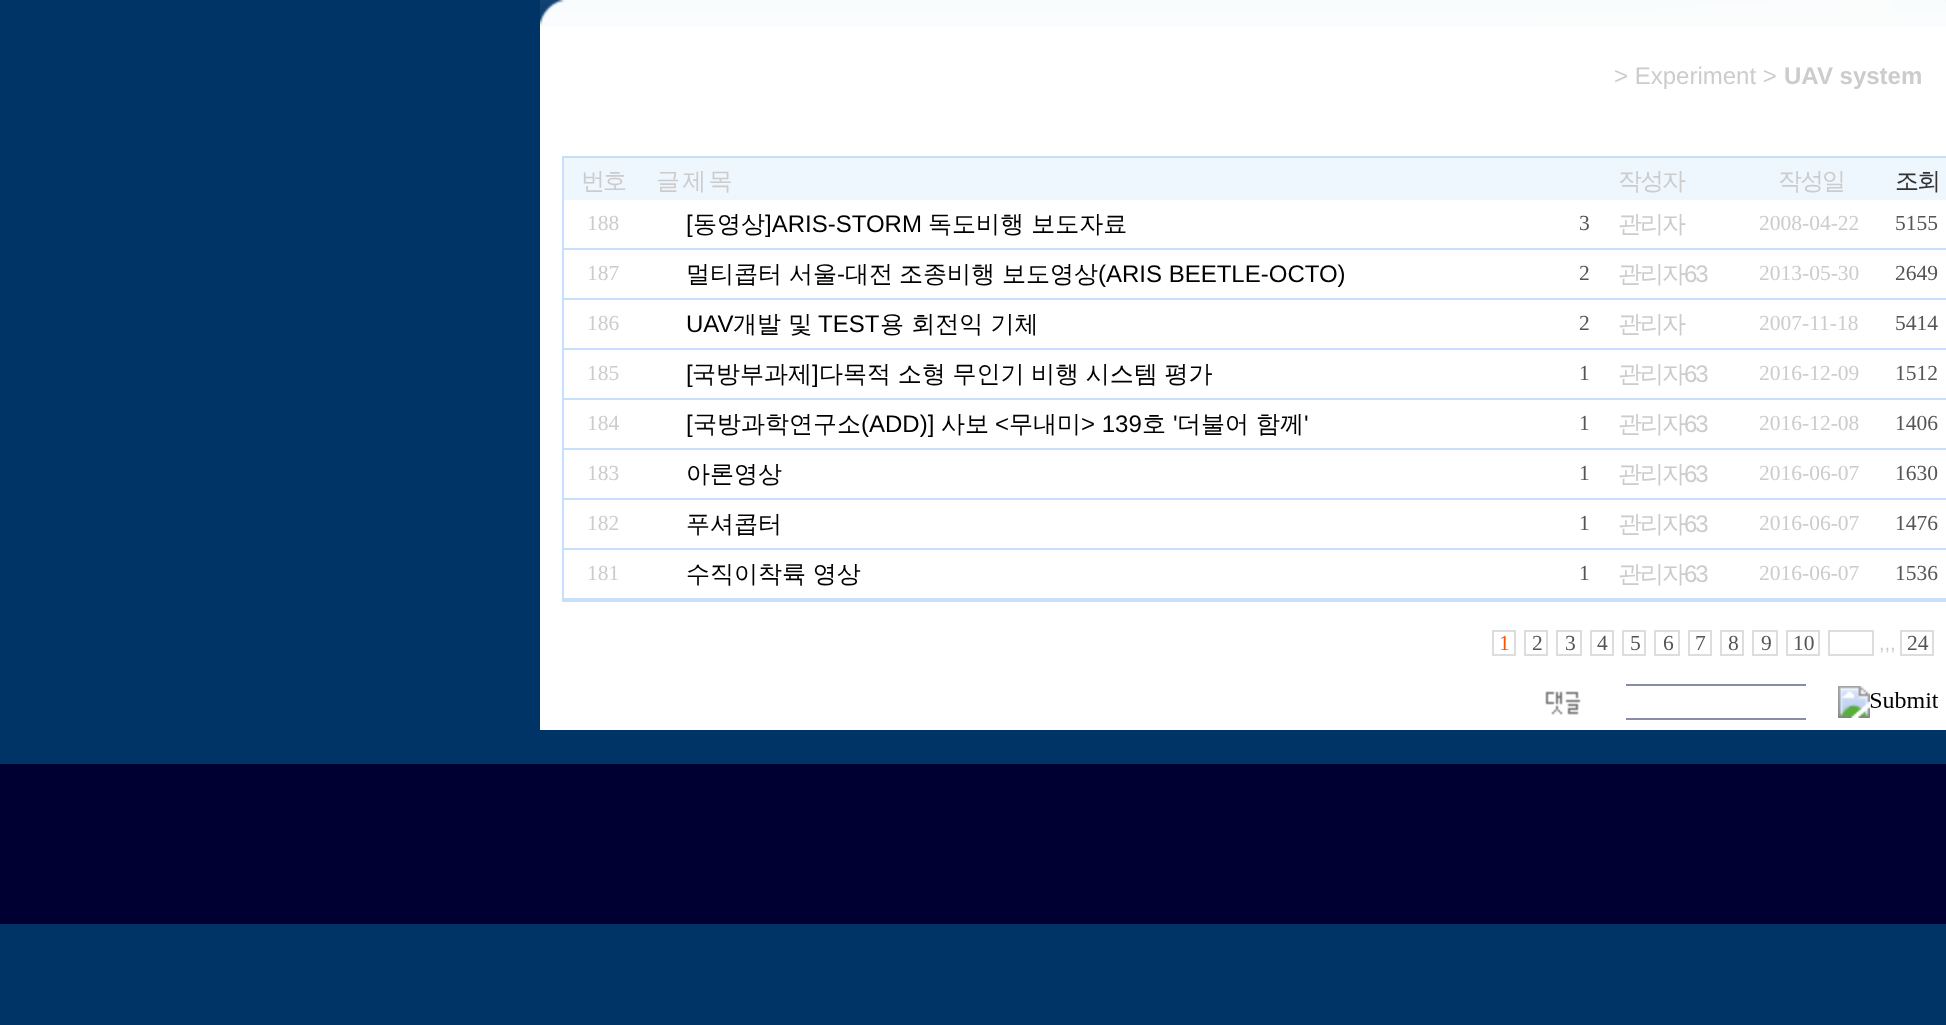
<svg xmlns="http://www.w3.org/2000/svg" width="1946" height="1025">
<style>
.a{font:24px Liberation Sans;fill:#ccc}
.b{font:bold 24px Liberation Sans;fill:#ccc}
.c{font:500 24px WenQuanYi Zen Hei;letter-spacing:-2px;fill:#ccc}
.d{font:500 24px WenQuanYi Zen Hei;letter-spacing:-2px;fill:#333}
.e{font:21.5px Liberation Serif;fill:#ccc}
.f{font:24px Liberation Sans;fill:#000}
.g{font:500 24px WenQuanYi Zen Hei;fill:#000}
.h{font:21.5px Liberation Serif;fill:#555}
.i{font:24px Liberation Sans;letter-spacing:-2px;fill:#ccc}
.j{font:21.5px Liberation Serif;fill:#f50}
.k{font:20px Liberation Sans;fill:#ccc}
</style>
<rect width="100%" height="100%" fill="#036"/>
<path fill="#fff" d="M540 27h1406v703H540z"/>
<image href="1.png" x="540" y="0" width="1406" height="27"/>
<path fill="none" stroke="#c8dffb" stroke-width="2" d="M563 157h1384v444H563z"/>
<path fill="#eff7fe" d="M564 158h1382v42H564z"/>
<path fill="#c8dffb" d="M564 248h1382v2H564z"/>
<path fill="#c8dffb" d="M564 298h1382v2H564z"/>
<path fill="#c8dffb" d="M564 348h1382v2H564z"/>
<path fill="#c8dffb" d="M564 398h1382v2H564z"/>
<path fill="#c8dffb" d="M564 448h1382v2H564z"/>
<path fill="#c8dffb" d="M564 498h1382v2H564z"/>
<path fill="#c8dffb" d="M564 548h1382v2H564z"/>
<path fill="#c8dffb" d="M564 598h1382v2H564z"/>
<path fill="none" stroke="#ddd" stroke-width="2" d="M1493 631h22v24H1493z"/>
<path fill="none" stroke="#ddd" stroke-width="2" d="M1525 631h22v24H1525z"/>
<path fill="none" stroke="#ddd" stroke-width="2" d="M1557 631h24v24H1557z"/>
<path fill="none" stroke="#ddd" stroke-width="2" d="M1591 631h22v24H1591z"/>
<path fill="none" stroke="#ddd" stroke-width="2" d="M1623 631h22v24H1623z"/>
<path fill="none" stroke="#ddd" stroke-width="2" d="M1655 631h24v24H1655z"/>
<path fill="none" stroke="#ddd" stroke-width="2" d="M1689 631h22v24H1689z"/>
<path fill="none" stroke="#ddd" stroke-width="2" d="M1721 631h22v24H1721z"/>
<path fill="none" stroke="#ddd" stroke-width="2" d="M1753 631h24v24H1753z"/>
<path fill="none" stroke="#ddd" stroke-width="2" d="M1787 631h32v24H1787z"/>
<path fill="none" stroke="#ddd" stroke-width="2" d="M1829 631h44v24H1829z"/>
<path fill="none" stroke="#ddd" stroke-width="2" d="M1901 631h32v24H1901z"/>
<image href="2.png" x="1545" y="691" width="36" height="24"/>
<path fill="#888ca5" d="M1626 684h180v2H1626z"/>
<path fill="#888ca5" d="M1626 718h180v2H1626z"/>
<image href="3.png" x="1838" y="686" width="100" height="32"/>
<path fill="#003" d="M0 764h1946v160H0z"/>
<text class="a" x="1614" y="84">&gt; Experiment &gt;</text>
<text class="b" x="1784" y="84">UAV system</text>
<text class="c" x="581" y="189">번호</text>
<text class="c" x="656" y="189" word-spacing="-1">글 제 목</text>
<text class="c" x="1618" y="189">작성자</text>
<text class="c" x="1778" y="189">작성일</text>
<text class="d" x="1895" y="189">조회</text>
<text class="e" x="587" y="230">188</text>
<text class="f" x="686" y="232">[</text>
<text class="g" x="693" y="232">동영상</text>
<text class="f" x="765" y="232">]ARIS-STORM</text>
<text class="g" x="928" y="232">독도비행 보도자료</text>
<text class="h" x="1579" y="230">3</text>
<text class="c" x="1618" y="232">관리자</text>
<text class="e" x="1759" y="230">2008-04-22</text>
<text class="h" x="1895" y="230">5155</text>
<text class="e" x="587" y="280">187</text>
<text class="g" x="686" y="282">멀티콥터</text>
<text class="g" x="789" y="282">서울</text>
<text class="f" x="837" y="282">-</text>
<text class="g" x="845" y="282">대전</text>
<text class="g" x="899" y="282">조종비행</text>
<text class="g" x="1002" y="282">보도영상</text>
<text class="f" x="1098" y="282">(ARIS BEETLE-OCTO)</text>
<text class="h" x="1579" y="280">2</text>
<text class="c" x="1618" y="282">관리자</text>
<text class="i" x="1684" y="282">63</text>
<text class="e" x="1759" y="280">2013-05-30</text>
<text class="h" x="1895" y="280">2649</text>
<text class="e" x="587" y="330">186</text>
<text class="f" x="686" y="332">UAV</text>
<text class="g" x="733" y="332">개발 및</text>
<text class="f" x="818" y="332">TEST</text>
<text class="g" x="880" y="332">용 회전익 기체</text>
<text class="h" x="1579" y="330">2</text>
<text class="c" x="1618" y="332">관리자</text>
<text class="e" x="1759" y="330">2007-11-18</text>
<text class="h" x="1895" y="330">5414</text>
<text class="e" x="587" y="380">185</text>
<text class="f" x="686" y="382">[</text>
<text class="g" x="692" y="382">국방부과제</text>
<text class="f" x="812" y="382">]</text>
<text class="g" x="819" y="382" word-spacing="-0.5">다목적 소형 무인기 비행 시스템 평가</text>
<text class="h" x="1579" y="380">1</text>
<text class="c" x="1618" y="382">관리자</text>
<text class="i" x="1684" y="382">63</text>
<text class="e" x="1759" y="380">2016-12-09</text>
<text class="h" x="1895" y="380">1512</text>
<text class="e" x="587" y="430">184</text>
<text class="f" x="686" y="432">[</text>
<text class="g" x="693" y="432">국방과학연구소</text>
<text class="f" x="861" y="432">(ADD)]</text>
<text class="g" x="941" y="432">사보</text>
<text class="f" x="995" y="432">&lt;</text>
<text class="g" x="1009" y="432">무내미</text>
<text class="f" x="1081" y="432">&gt; 139</text>
<text class="g" x="1142" y="432">호</text>
<text class="f" x="1173" y="432">'</text>
<text class="g" x="1177" y="432">더불어</text>
<text class="g" x="1256" y="432">함께</text>
<text class="f" x="1304" y="432">'</text>
<text class="h" x="1579" y="430">1</text>
<text class="c" x="1618" y="432">관리자</text>
<text class="i" x="1684" y="432">63</text>
<text class="e" x="1759" y="430">2016-12-08</text>
<text class="h" x="1895" y="430">1406</text>
<text class="e" x="587" y="480">183</text>
<text class="g" x="686" y="482">아론영상</text>
<text class="h" x="1579" y="480">1</text>
<text class="c" x="1618" y="482">관리자</text>
<text class="i" x="1684" y="482">63</text>
<text class="e" x="1759" y="480">2016-06-07</text>
<text class="h" x="1895" y="480">1630</text>
<text class="e" x="587" y="530">182</text>
<text class="g" x="686" y="532">푸셔콥터</text>
<text class="h" x="1579" y="530">1</text>
<text class="c" x="1618" y="532">관리자</text>
<text class="i" x="1684" y="532">63</text>
<text class="e" x="1759" y="530">2016-06-07</text>
<text class="h" x="1895" y="530">1476</text>
<text class="e" x="587" y="580">181</text>
<text class="g" x="686" y="582" word-spacing="-0.5">수직이착륙 영상</text>
<text class="h" x="1579" y="580">1</text>
<text class="c" x="1618" y="582">관리자</text>
<text class="i" x="1684" y="582">63</text>
<text class="e" x="1759" y="580">2016-06-07</text>
<text class="h" x="1895" y="580">1536</text>
<text class="j" x="1499" y="650">1</text>
<text class="h" x="1532" y="650">2</text>
<text class="h" x="1565" y="650">3</text>
<text class="h" x="1597" y="650">4</text>
<text class="h" x="1630" y="650">5</text>
<text class="h" x="1663" y="650">6</text>
<text class="h" x="1695" y="650">7</text>
<text class="h" x="1728" y="650">8</text>
<text class="h" x="1761" y="650">9</text>
<text class="h" x="1793" y="650">10</text>
<text class="k" x="1879" y="650">,,,</text>
<text class="h" x="1907" y="650">24</text>
</svg>
